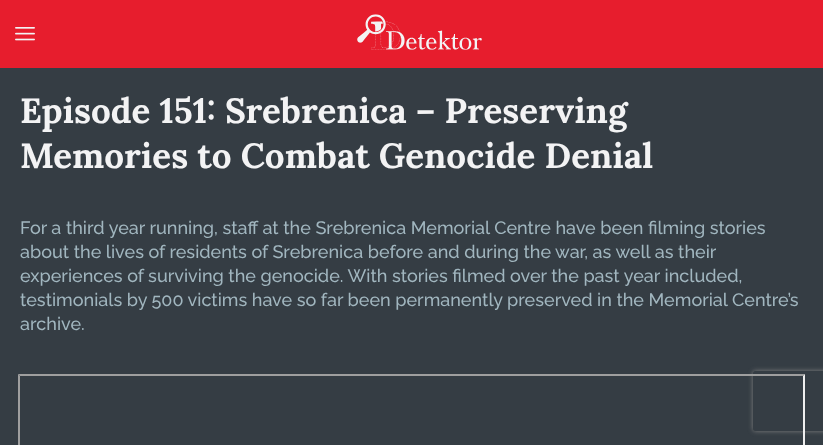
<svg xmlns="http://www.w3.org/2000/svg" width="823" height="445">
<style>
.a{font:bold 35px Lora;fill:#f3f3f4}
.b{font:500 18px Raleway;fill:#a1b6bf}
</style>
<defs>
<clipPath id="clip1"><path d="M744 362h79v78h-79zm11 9h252c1 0 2 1 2 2v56c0 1-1 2-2 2h-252c-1 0-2-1-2-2v-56c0-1 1-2 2-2z" clip-rule="evenodd"/></clipPath>
</defs>
<rect width="100%" height="100%" fill="#353d44"/>
<path fill="#e71d2d" d="M0 0h823v68H0z"/>
<image href="1.png" x="15" y="27" width="20" height="14"/>
<image href="2.png" x="357" y="14" width="125" height="36"/>
<g clip-path="url(#clip1)">
<rect fill="#808080" filter="blur(2.5px)" x="753" y="371" width="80" height="60" rx="2"/>
</g>
<path fill="#9f9f9f" d="M18 374h787l-2 2h-783z"/>
<path fill="#eee" d="M805 374v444l-2-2v-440z"/>
<path fill="#9f9f9f" d="M18 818v-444l2 2v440z"/>
<text class="a" x="20" y="123">Episode 151: Srebrenica – Preserving</text>
<text class="a" x="20" y="168">Memories to Combat Genocide Denial</text>
<text class="b" x="20" y="234">For a third year running, staff at the Srebrenica Memorial Centre have been filming stories</text>
<text class="b" x="20" y="258">about the lives of residents of Srebrenica before and during the war, as well as their</text>
<text class="b" x="20" y="282">experiences of surviving the genocide. With stories filmed over the past year included,</text>
<text class="b" x="20" y="306">testimonials by 500 victims have so far been permanently preserved in the Memorial Centre’s</text>
<text class="b" x="20" y="330">archive.</text>
</svg>
